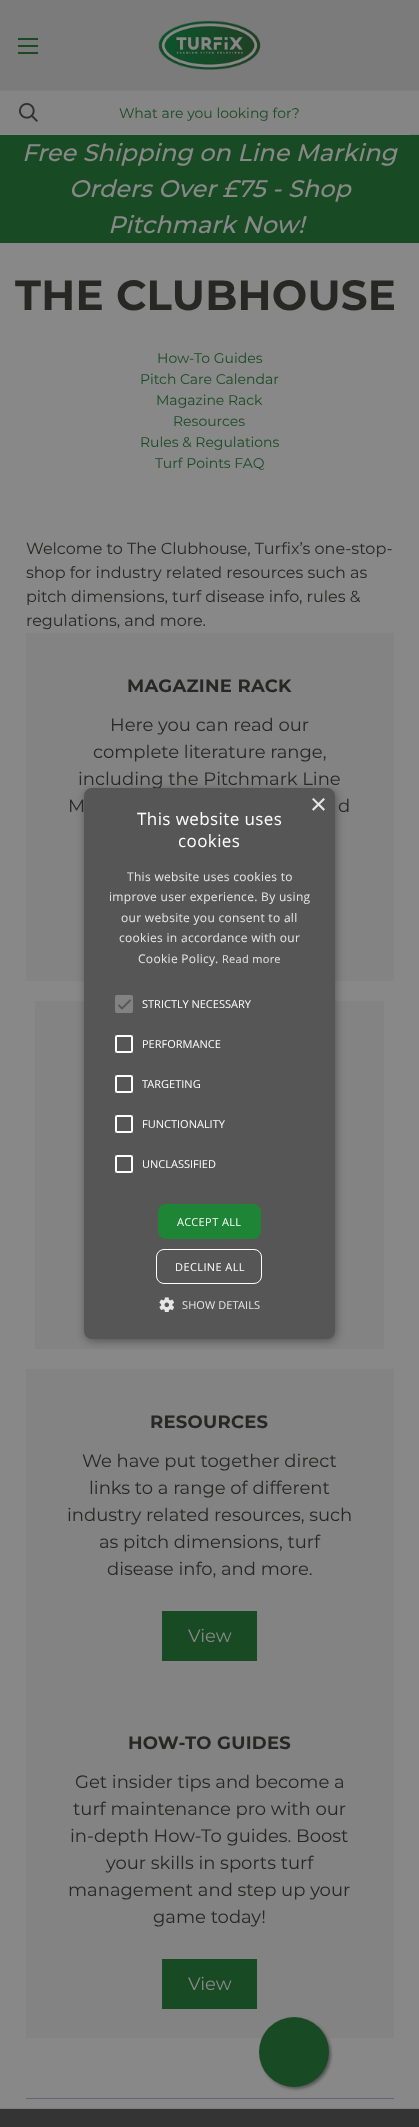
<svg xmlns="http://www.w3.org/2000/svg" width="419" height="2127">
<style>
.a{font:14px Montserrat;fill:#184b24}
.b{font:italic 500 24px Montserrat;fill:#888}
.c{font:bold 42px Montserrat;letter-spacing:0.25px;fill:#272726}
.d{font:16px Montserrat;fill:#272726}
.e{font:bold 18px Montserrat;letter-spacing:0.25px;fill:#272726}
.f{font:18px Montserrat;fill:#272726}
.g{font:18px Montserrat;fill:#888}
.h{font:29px Liberation Sans;fill:#e6e6e6}
.i{font:17px Open Sans;letter-spacing:0.4px;fill:#fff}
.j{font:12px Open Sans;letter-spacing:0.3px;fill:#e6e6e6}
.k{font:11px Open Sans;letter-spacing:0.3px;fill:#e6e6e6}
.l{font:11px Open Sans;fill:#fff}
.m{font:11px Open Sans;letter-spacing:0.4px;fill:#fff}
.n{font:11px Open Sans;letter-spacing:0.1px;fill:#e6e6e6}
</style>
<rect width="100%" height="100%" fill="#888"/>
<path fill="#7b7b7b" d="M0 0h419v90H0z"/>
<path fill="#7e7e7e" d="M410 134h9v1H410z"/>
<path fill="#184b24" d="M18 45h20v2H18z"/>
<path fill="#184b24" d="M18 38h20v2H18z"/>
<path fill="#184b24" d="M18 52h20v2H18z"/>
<image href="1.png" x="158" y="20" width="103" height="50"/>
<path fill="#858585" d="M0 91h419v43H0z"/>
<image href="2.png" x="19" y="103" width="19" height="19"/>
<path fill="#7e7e7e" d="M0 90h419v1H0z"/>
<path fill="#184b24" d="M0 135h419v108H0z"/>
<path fill="#838383" d="M26 633h368v348H26z"/>
<path fill="#838383" d="M35 1001h349v348H35z"/>
<path fill="#838383" d="M26 1369h368v669H26z"/>
<path fill="#184b24" d="M162 1611h95v50H162z"/>
<path fill="#184b24" d="M162 1959h95v50H162z"/>
<path fill="#636671" d="M26 2098h368v1H26z"/>
<rect fill="#00000059" filter="blur(4px)" x="85" y="790" width="251" height="551" rx="8"/>
<rect fill="#555" filter="blur(1.5px)" x="261" y="2019" width="70" height="70" rx="35"/>
<circle fill="#184b24" cx="294" cy="2052" r="35"/>
<path fill="#353435" d="M0 2109h419v18H0z"/>
<path fill="#7e7e7e" d="M0 2108h419v1H0z"/>
<text class="a" x="119" y="118">What are you looking for?</text>
<text class="b" x="22" y="161">Free Shipping on Line Marking</text>
<text class="b" x="69" y="197">Orders Over £75 - Shop</text>
<text class="b" x="108" y="233">Pitchmark Now!</text>
<text class="c" x="15" y="310">THE CLUBHOUSE</text>
<text class="a" x="157" y="363">How-To Guides</text>
<text class="a" x="140" y="384">Pitch Care Calendar</text>
<text class="a" x="156" y="405">Magazine Rack</text>
<text class="a" x="173" y="426">Resources</text>
<text class="a" x="140" y="447">Rules &amp; Regulations</text>
<text class="a" x="155" y="468">Turf Points FAQ</text>
<text class="d" x="26" y="554">Welcome to The Clubhouse, Turfix’s one-stop-</text>
<text class="d" x="26" y="578">shop for industry related resources such as</text>
<text class="d" x="26" y="602">pitch dimensions, turf disease info, rules &amp;</text>
<text class="d" x="26" y="626">regulations, and more.</text>
<text class="e" x="127" y="692">MAGAZINE RACK</text>
<text class="f" x="110" y="731">Here you can read our</text>
<text class="f" x="93" y="758">complete literature range,</text>
<text class="f" x="78" y="785">including the Pitchmark Line</text>
<text class="f" x="68" y="812">M</text>
<text class="f" x="338" y="812">d</text>
<text class="e" x="150" y="1428">RESOURCES</text>
<text class="f" x="82" y="1467">We have put together direct</text>
<text class="f" x="89" y="1494">links to a range of different</text>
<text class="f" x="67" y="1521">industry related resources, such</text>
<text class="f" x="99" y="1548">as pitch dimensions, turf</text>
<text class="f" x="107" y="1575">disease info, and more.</text>
<text class="g" x="188" y="1642">View</text>
<text class="e" x="128" y="1749">HOW-TO GUIDES</text>
<text class="f" x="75" y="1788">Get insider tips and become a</text>
<text class="f" x="73" y="1815">turf maintenance pro with our</text>
<text class="f" x="70" y="1842">in-depth How-To guides. Boost</text>
<text class="f" x="106" y="1869">your skills in sports turf</text>
<text class="f" x="68" y="1896">management and step up your</text>
<text class="f" x="153" y="1923">game today!</text>
<text class="g" x="188" y="1990">View</text>
<rect fill="#575656" x="84" y="788" width="251" height="551" rx="8"/>
<text class="h" x="310" y="814">×</text>
<text class="i" x="137" y="825">This website uses</text>
<text class="i" x="178" y="847">cookies</text>
<text class="j" x="127" y="881">This website uses cookies to</text>
<text class="j" x="109" y="901">improve user experience. By using</text>
<text class="j" x="121" y="922">our website you consent to all</text>
<text class="j" x="119" y="942">cookies in accordance with our</text>
<text class="j" x="138" y="963">Cookie Policy.</text>
<text class="k" x="222" y="963">Read more</text>
<rect fill="#838282" x="115" y="995" width="18" height="18" rx="2"/>
<path fill="none" stroke="#575656" stroke-width="1.8" d="M118.5 1005l3.5 3.5l8.5-8.5"/>
<text class="l" x="142" y="1008">STRICTLY NECESSARY</text>
<rect fill="none" stroke="#fff" stroke-width="2" x="116" y="1036" width="16" height="16" rx="1"/>
<text class="l" x="142" y="1048">PERFORMANCE</text>
<rect fill="none" stroke="#fff" stroke-width="2" x="116" y="1076" width="16" height="16" rx="1"/>
<text class="l" x="142" y="1088">TARGETING</text>
<rect fill="none" stroke="#fff" stroke-width="2" x="116" y="1116" width="16" height="16" rx="1"/>
<text class="l" x="142" y="1128">FUNCTIONALITY</text>
<rect fill="none" stroke="#fff" stroke-width="2" x="116" y="1156" width="16" height="16" rx="1"/>
<text class="l" x="142" y="1168">UNCLASSIFIED</text>
<rect fill="#1f8536" x="158" y="1204" width="103" height="35" rx="8"/>
<text class="m" x="177" y="1226">ACCEPT ALL</text>
<rect fill="none" stroke="#fff" x="156.5" y="1249.5" width="105" height="34" rx="7.5"/>
<text class="m" x="175" y="1271">DECLINE ALL</text>
<image href="3.png" x="159" y="1297" width="15" height="15"/>
<text class="n" x="182" y="1309">SHOW DETAILS</text>
</svg>
